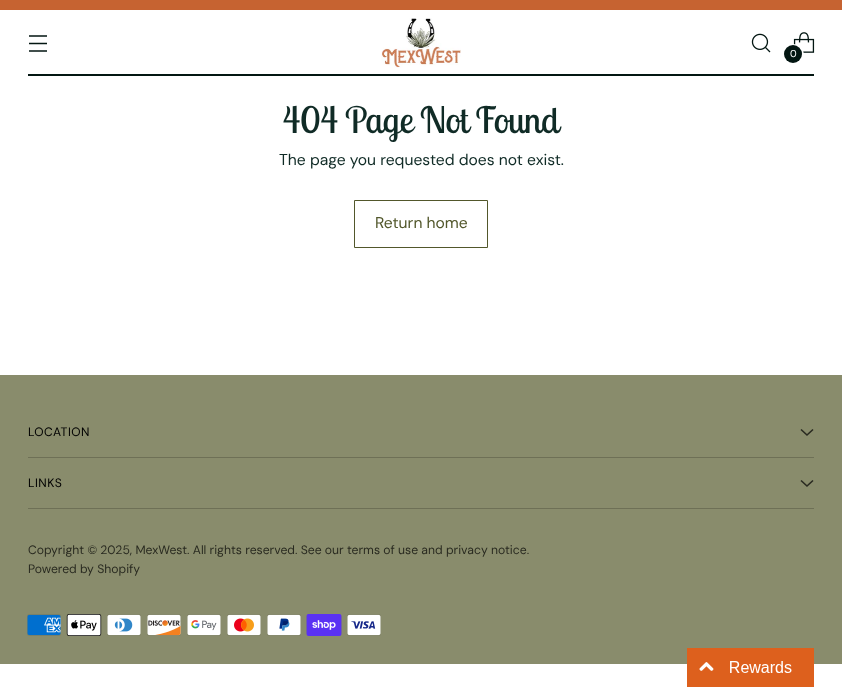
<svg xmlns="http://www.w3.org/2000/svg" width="842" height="688">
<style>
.a{font:10px 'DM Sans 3';fill:#fff}
.b{font:36.25px Lobster Two;letter-spacing:-0.4px;fill:#102b26}
.c{font:15.7px DM Sans;fill:#102b26}
.d{font:15.7px DM Sans;fill:#52572b}
.e{font:12.2px 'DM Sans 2';letter-spacing:0.5px;fill:#000}
.f{font:12.2px 'DM Sans 2';fill:#292a20}
</style>
<rect width="100%" height="100%" fill="#fff"/>
<path fill="#c66331" d="M0 0h842v10H0z"/>
<path fill="#031612" d="M28 74h786v2H28z"/>
<path fill="none" stroke="#031612" stroke-width="1.3" d="M29 43.5h18m-18-7.5h18m-18 15h18"/>
<image href="1.png" x="381" y="18" width="80" height="50"/>
<image href="2.png" x="751" y="33" width="20" height="20"/>
<image href="3.png" x="793" y="32" width="22" height="21"/>
<circle fill="none" stroke="#fff" stroke-width="2" cx="793.5" cy="54.5" r="9.5"/>
<circle fill="#031612" cx="793" cy="54" r="9"/>
<path fill="none" stroke="#52572b" d="M354.5 200.5h133v47H354.5z"/>
<path fill="#898c6c" d="M0 375h842v289H0z"/>
<path fill="#6e7056" d="M28 457h786v1H28z"/>
<path fill="none" stroke="#292a20" stroke-width="1.6" d="M801 429.5l6 5.5l6-5.5m-12 51l6 5.5l6-5.5"/>
<path fill="#6e7056" d="M28 508h786v1H28z"/>
<image href="4.png" x="27" y="614" width="34" height="22"/>
<image href="5.png" x="66" y="614" width="36" height="22"/>
<image href="6.png" x="107" y="614" width="34" height="22"/>
<image href="7.png" x="147" y="614" width="34" height="22"/>
<image href="8.png" x="187" y="614" width="34" height="22"/>
<image href="9.png" x="227" y="614" width="34" height="22"/>
<image href="10.png" x="267" y="614" width="34" height="22"/>
<image href="11.png" x="306" y="614" width="36" height="22"/>
<image href="12.png" x="347" y="614" width="34" height="22"/>
<image href="13.png" x="687" y="648" width="127" height="39"/>
<text class="a" x="790" y="57">0</text>
<text class="b" x="283" y="133">404 Page Not Found</text>
<text class="c" x="279" y="165">The page you requested does not exist.</text>
<text class="d" x="375" y="228">Return home</text>
<text class="e" x="28" y="436">LOCATION</text>
<text class="e" x="28" y="487">LINKS</text>
<text class="f" x="28" y="554">Copyright © 2025, MexWest. All rights reserved. See our terms of use and privacy notice.</text>
<text class="f" x="28" y="573">Powered by Shopify</text>
</svg>
